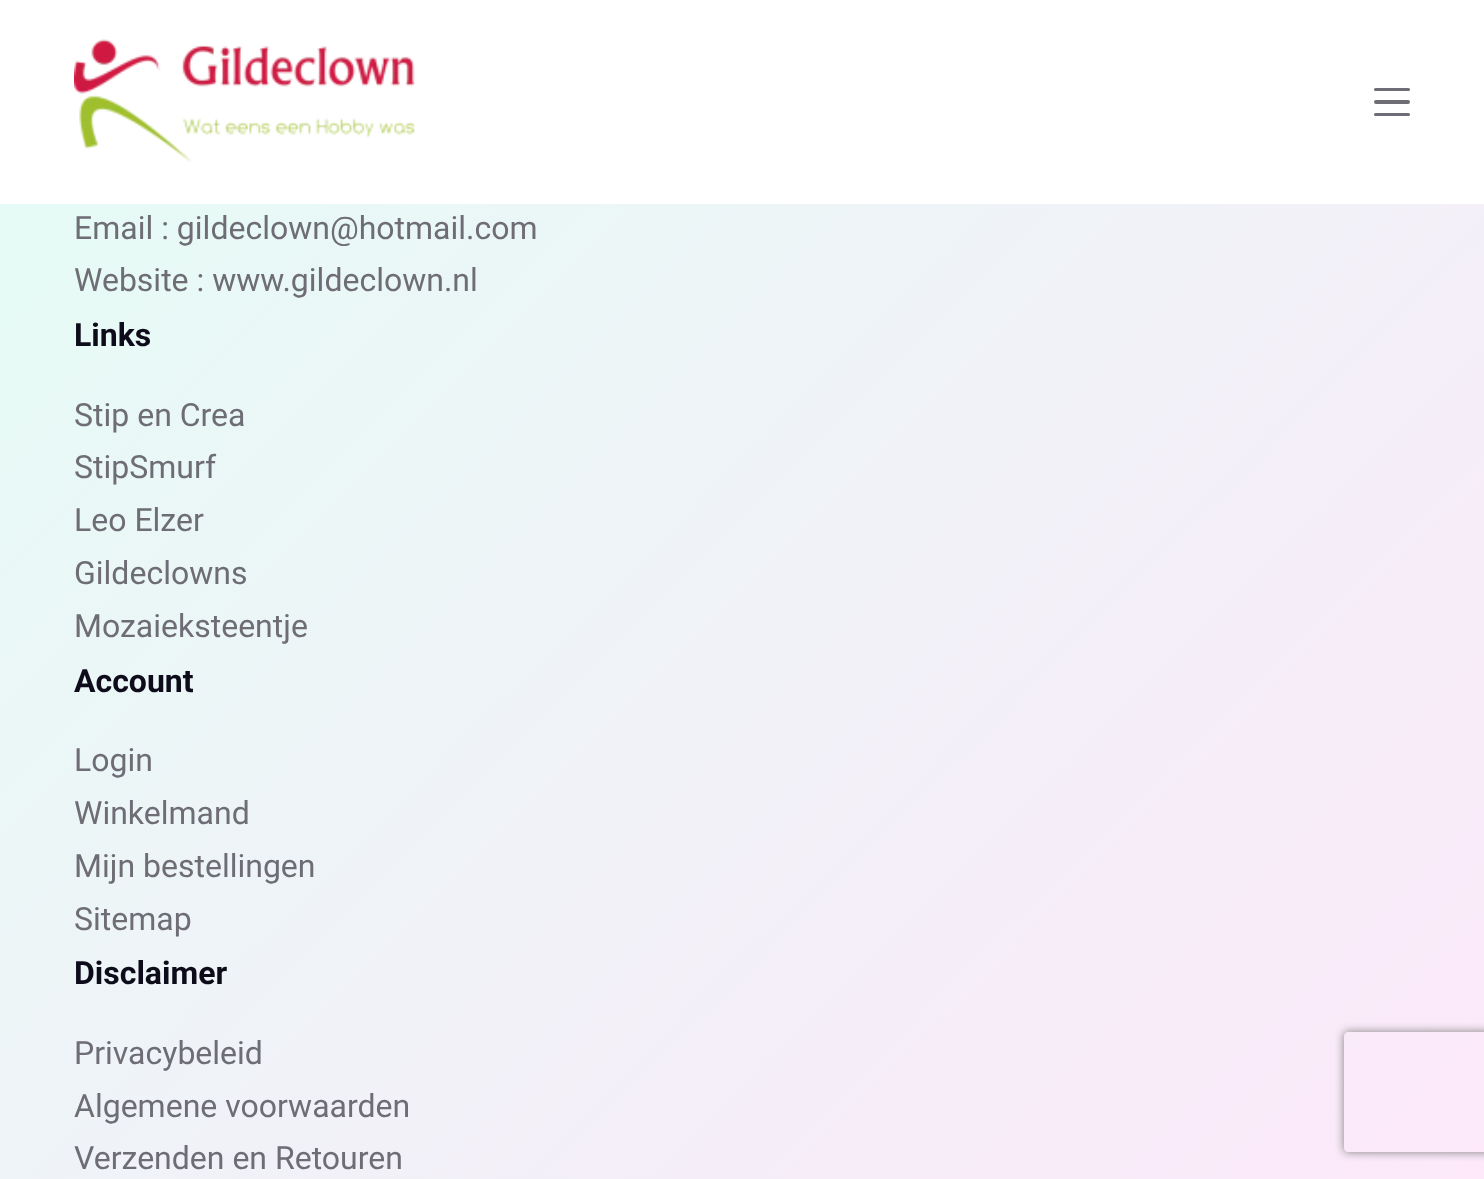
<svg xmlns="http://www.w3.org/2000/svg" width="1484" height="1179">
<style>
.a{font:32px Roboto;fill:#6e6d76}
.b{font:bold 32px Roboto;fill:#0e0c1b}
</style>
<defs>
<linearGradient id="g1" gradientUnits="userSpaceOnUse" x1="-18" y1="-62" x2="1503" y2="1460"><stop offset="0" stop-color="#e3fdf5"/><stop offset="1" stop-color="#ffe6fa"/></linearGradient>
<clipPath id="clip1"><path d="M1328 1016h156v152h-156zm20 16h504c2 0 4 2 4 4v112c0 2-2 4-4 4h-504c-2 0-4-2-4-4v-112c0-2 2-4 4-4z" clip-rule="evenodd"/></clipPath>
</defs>
<rect width="100%" height="100%" fill="#fff"/>
<image href="1.png" x="74" y="39" width="341" height="124"/>
<rect fill="#6e6d76" x="1374" y="88" width="36" height="3" rx="1.5"/>
<rect fill="#6e6d76" x="1374" y="100" width="36" height="4" rx="2"/>
<rect fill="#6e6d76" x="1374" y="113" width="36" height="3" rx="1.5"/>
<path fill="url(#g1)" d="M0 204h1484v975H0z"/>
<g clip-path="url(#clip1)">
<rect fill="#808080" filter="blur(5px)" x="1344" y="1032" width="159" height="120" rx="4"/>
</g>
<text class="a" x="74" y="239">Email : gildeclown@hotmail.com</text>
<text class="a" x="74" y="291">Website : www.gildeclown.nl</text>
<text class="b" x="74" y="346">Links</text>
<text class="a" x="74" y="426">Stip en Crea</text>
<text class="a" x="74" y="478">StipSmurf</text>
<text class="a" x="74" y="531">Leo Elzer</text>
<text class="a" x="74" y="584">Gildeclowns</text>
<text class="a" x="74" y="637">Mozaieksteentje</text>
<text class="b" x="74" y="692">Account</text>
<text class="a" x="74" y="771">Login</text>
<text class="a" x="74" y="824">Winkelmand</text>
<text class="a" x="74" y="877">Mijn bestellingen</text>
<text class="a" x="74" y="930">Sitemap</text>
<text class="b" x="74" y="984">Disclaimer</text>
<text class="a" x="74" y="1064">Privacybeleid</text>
<text class="a" x="74" y="1117">Algemene voorwaarden</text>
<text class="a" x="74" y="1169">Verzenden en Retouren</text>
</svg>
